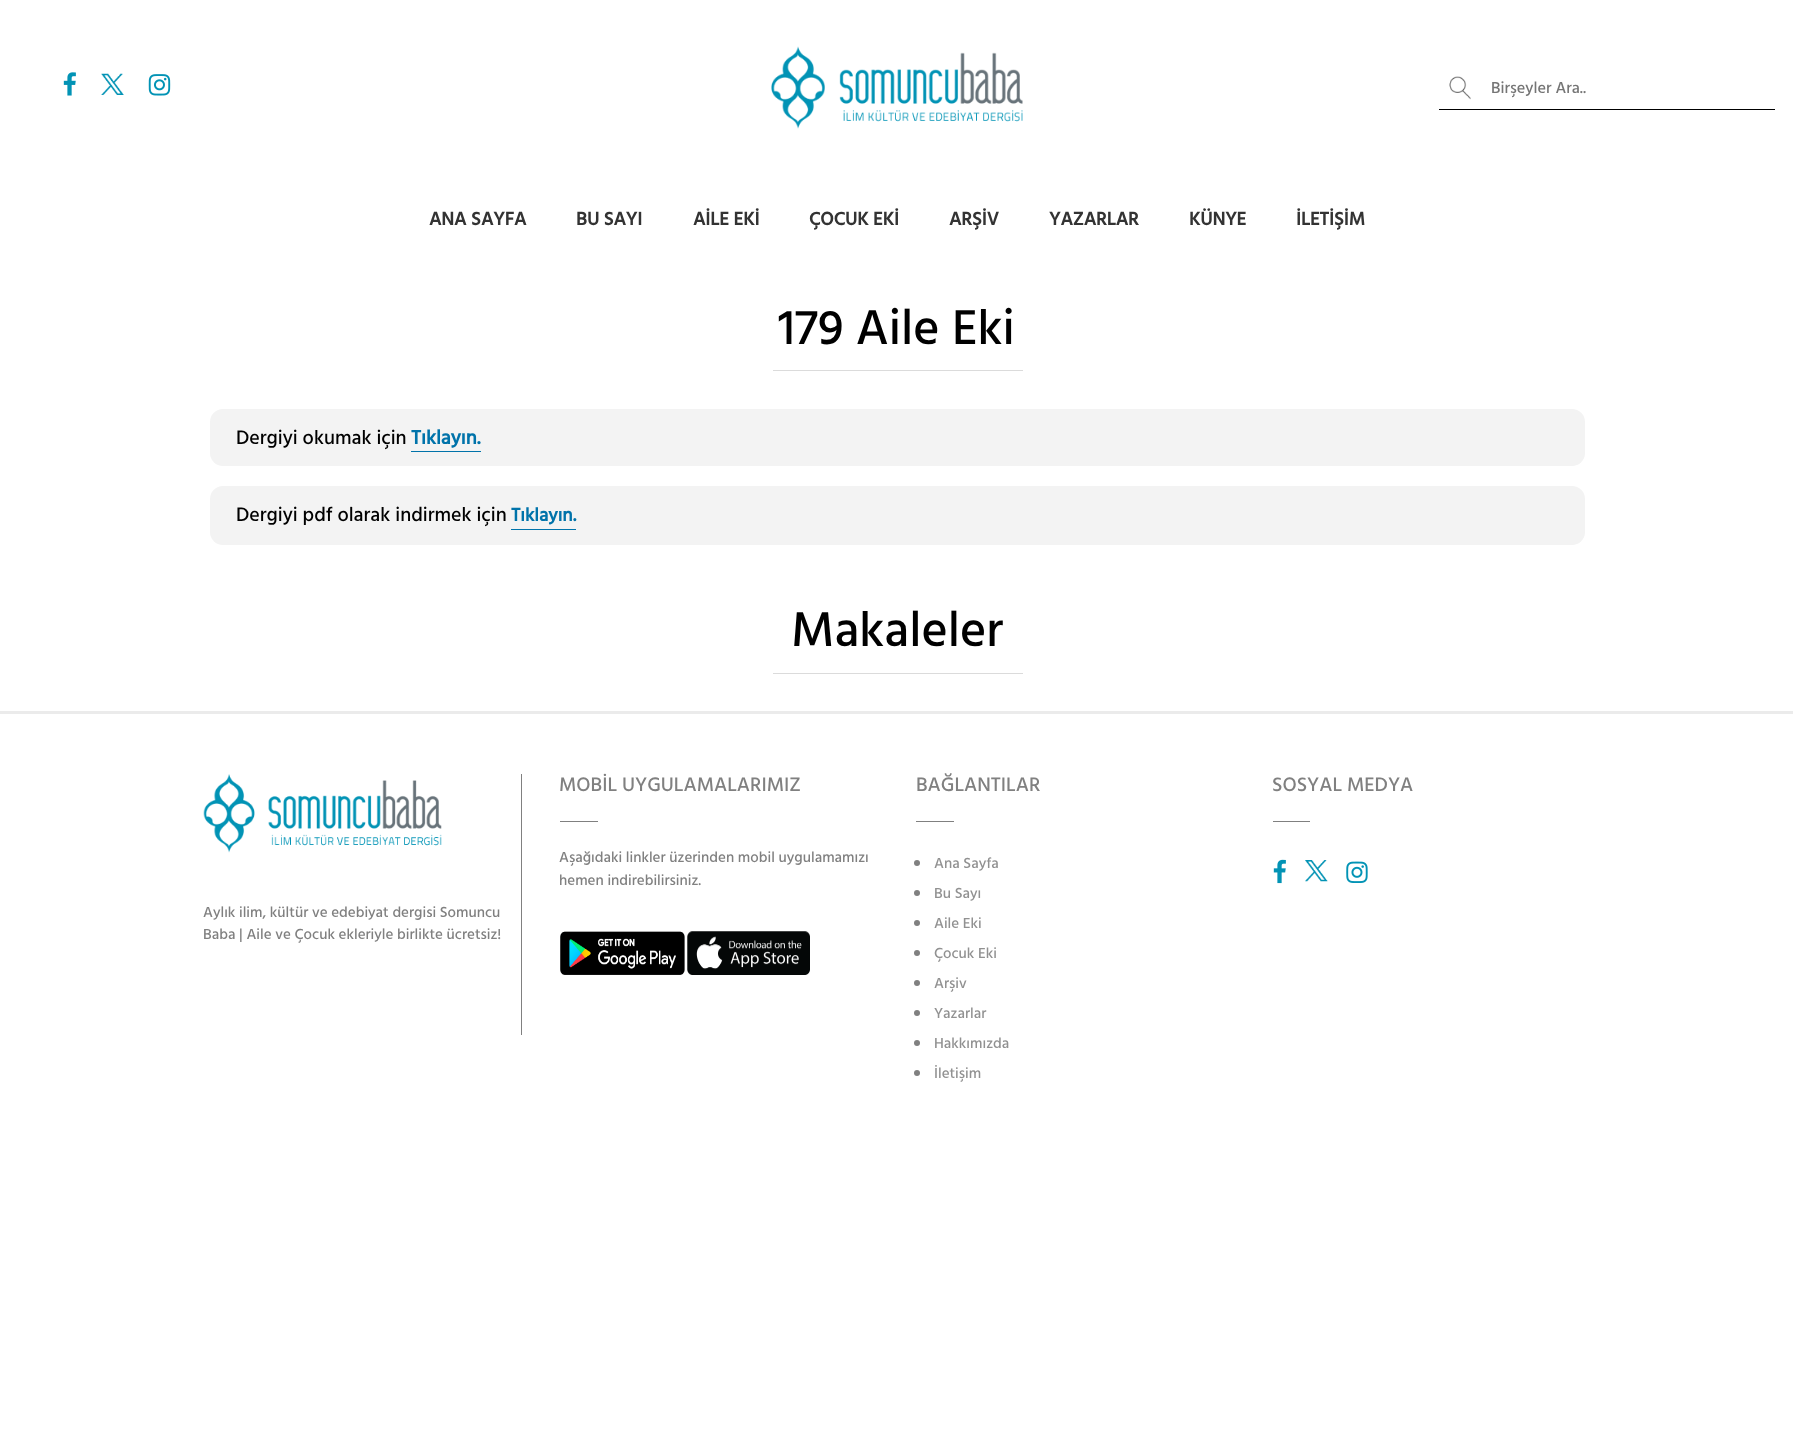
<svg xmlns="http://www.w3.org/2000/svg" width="1793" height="1446">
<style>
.a{font:500 16.25px Hind Madurai;fill:#757575}
.b{font:bold 18.75px Hind Madurai;fill:#333}
.c{font:500 50px Hind Madurai;fill:#000}
.d{font:500 20px Hind Madurai;fill:#000}
.e{font:bold 20px Hind Madurai;fill:#0073aa}
.f{font:bold 18.75px Hind Madurai;fill:#0073aa}
.g{font:500 20px Hind Madurai;fill:#808080}
.h{font:500 15px Hind Madurai;fill:#808080}
.i{font:500 15px Hind Madurai;fill:#919191}
</style>
<rect width="100%" height="100%" fill="#fff"/>
<image href="1.png" x="63" y="72" width="13" height="24"/>
<image href="2.png" x="101" y="73" width="23" height="22"/>
<image href="3.png" x="148" y="74" width="23" height="22"/>
<image href="4.png" x="771" y="46" width="252" height="83"/>
<path fill="#000" d="M1439 109h336v1H1439z"/>
<image href="5.png" x="1449" y="76" width="22" height="24"/>
<path fill="#dbdbdb" d="M773 370h250v1H773z"/>
<rect fill="#f3f3f3" x="210" y="409" width="1375" height="57" rx="13"/>
<path fill="#0073aa" d="M411 451h70v1H411z"/>
<rect fill="#f3f3f3" x="210" y="486" width="1375" height="59" rx="13"/>
<path fill="#0073aa" d="M511 529h65v1H511z"/>
<path fill="#dbdbdb" d="M773 673h250v1H773z"/>
<path fill="#ebebeb" d="M0 711h1793v3H0z"/>
<path fill="#808080" d="M560 821h38v1H560z"/>
<image href="6.png" x="560" y="931" width="125" height="44"/>
<image href="7.png" x="687" y="931" width="123" height="44"/>
<path fill="#808080" d="M521 774h1v261H521z"/>
<image href="8.png" x="203" y="774" width="239" height="79"/>
<path fill="#808080" d="M916 821h38v1H916z"/>
<circle fill="#808080" cx="917" cy="863" r="3"/>
<circle fill="#808080" cx="917" cy="893" r="3"/>
<circle fill="#808080" cx="917" cy="923" r="3"/>
<circle fill="#808080" cx="917" cy="953" r="3"/>
<circle fill="#808080" cx="917" cy="983" r="3"/>
<circle fill="#808080" cx="917" cy="1013" r="3"/>
<circle fill="#808080" cx="917" cy="1043" r="3"/>
<circle fill="#808080" cx="917" cy="1073" r="3"/>
<path fill="#808080" d="M1273 821h37v1H1273z"/>
<image href="9.png" x="1273" y="859" width="13" height="25"/>
<image href="10.png" x="1305" y="860" width="23" height="22"/>
<image href="11.png" x="1346" y="861" width="22" height="22"/>
<text class="a" x="1491" y="93">Birşeyler Ara..</text>
<text class="b" x="429" y="225">ANA SAYFA</text>
<text class="b" x="576" y="225">BU SAYI</text>
<text class="b" x="693" y="225">AİLE EKİ</text>
<text class="b" x="809" y="225">ÇOCUK EKİ</text>
<text class="b" x="949" y="225">ARŞİV</text>
<text class="b" x="1049" y="225">YAZARLAR</text>
<text class="b" x="1189" y="225">KÜNYE</text>
<text class="b" x="1296" y="225">İLETİŞİM</text>
<text class="c" x="778" y="344">179 Aile Eki</text>
<text class="d" x="236" y="444">Dergiyi okumak için</text>
<text class="e" x="411" y="444">Tıklayın.</text>
<text class="d" x="236" y="521">Dergiyi pdf olarak indirmek için</text>
<text class="f" x="511" y="521">Tıklayın.</text>
<text class="c" x="791" y="646">Makaleler</text>
<text class="g" x="559" y="791">MOBİL UYGULAMALARIMIZ</text>
<text class="h" x="559" y="862">Aşağıdaki linkler üzerinden mobil uygulamamızı</text>
<text class="h" x="559" y="885">hemen indirebilirsiniz.</text>
<text class="h" x="203" y="917">Aylık ilim, kültür ve edebiyat dergisi Somuncu</text>
<text class="h" x="203" y="939">Baba | Aile ve Çocuk ekleriyle birlikte ücretsiz!</text>
<text class="g" x="916" y="791">BAĞLANTILAR</text>
<text class="i" x="934" y="868">Ana Sayfa</text>
<text class="i" x="934" y="898">Bu Sayı</text>
<text class="i" x="934" y="928">Aile Eki</text>
<text class="i" x="934" y="958">Çocuk Eki</text>
<text class="i" x="934" y="988">Arşiv</text>
<text class="i" x="934" y="1018">Yazarlar</text>
<text class="i" x="934" y="1048">Hakkımızda</text>
<text class="i" x="934" y="1078">İletişim</text>
<text class="g" x="1272" y="791">SOSYAL MEDYA</text>
</svg>
